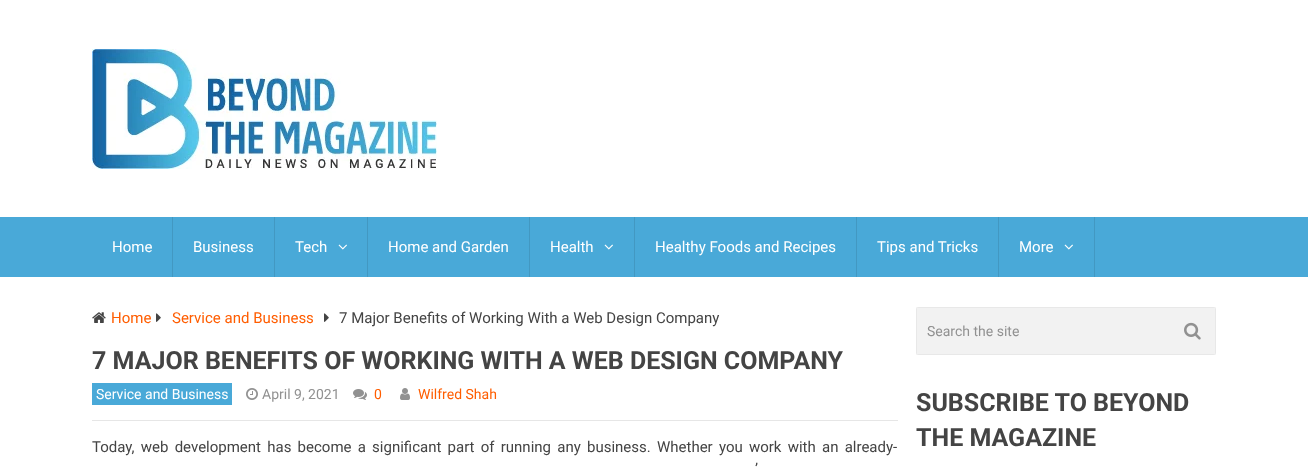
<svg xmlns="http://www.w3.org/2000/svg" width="1308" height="468">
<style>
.a{font:15px Roboto;fill:#fff}
.b{font:15px Roboto;fill:#ff5d00}
.c{font:15px Roboto;fill:#444}
.d{font:bold 25px Roboto;fill:#444}
.e{font:14px Roboto;fill:#fff}
.f{font:14px Roboto;fill:#919191}
.g{font:14px Roboto;fill:#ff5d00}
</style>
<rect width="100%" height="100%" fill="#fff"/>
<image href="1.png" x="92" y="49" width="345" height="120"/>
<path fill="#49a9d8" d="M0 217h1308v60H0z"/>
<path fill="#4298c2" d="M172 217h1v60H172z"/>
<path fill="#4298c2" d="M274 217h1v60H274z"/>
<path fill="#4298c2" d="M367 217h1v60H367z"/>
<image href="2.png" x="338" y="244" width="9" height="6"/>
<path fill="#4298c2" d="M529 217h1v60H529z"/>
<path fill="#4298c2" d="M634 217h1v60H634z"/>
<image href="2.png" x="604" y="244" width="9" height="6"/>
<path fill="#4298c2" d="M856 217h1v60H856z"/>
<path fill="#4298c2" d="M998 217h1v60H998z"/>
<path fill="#4298c2" d="M1094 217h1v60H1094z"/>
<image href="2.png" x="1064" y="244" width="9" height="6"/>
<image href="3.png" x="92" y="312" width="14" height="11"/>
<image href="4.png" x="156" y="313" width="5" height="9"/>
<image href="4.png" x="324" y="313" width="5" height="9"/>
<path fill="#e6e6e6" d="M92 420h806v1H92z"/>
<path fill="#49a9d8" d="M92 383h140v22H92z"/>
<image href="5.png" x="246" y="388" width="12" height="12"/>
<image href="6.png" x="353" y="389" width="14" height="11"/>
<image href="7.png" x="400" y="388" width="10" height="12"/>
<rect fill="#f2f2f2" x="916" y="307" width="300" height="48" rx="3"/>
<path fill="none" stroke="#0000000a" d="M916.5 307.5h299v47H916.5z"/>
<image href="8.png" x="1184" y="322" width="17" height="18"/>
<text class="a" x="112" y="252">Home</text>
<text class="a" x="193" y="252">Business</text>
<text class="a" x="295" y="252">Tech</text>
<text class="a" x="388" y="252">Home and Garden</text>
<text class="a" x="550" y="252">Health</text>
<text class="a" x="655" y="252">Healthy Foods and Recipes</text>
<text class="a" x="877" y="252">Tips and Tricks</text>
<text class="a" x="1019" y="252">More</text>
<text class="b" x="111" y="323">Home</text>
<text class="b" x="172" y="323">Service and Business</text>
<text class="c" x="339" y="323">7 Major Benefits of Working With a Web Design Company</text>
<text class="d" x="92" y="369">7 MAJOR BENEFITS OF WORKING WITH A WEB DESIGN COMPANY</text>
<text class="e" x="96" y="399">Service and Business</text>
<text class="f" x="262" y="399">April 9, 2021</text>
<text class="g" x="374" y="399">0</text>
<text class="g" x="418" y="399">Wilfred Shah</text>
<text class="c" x="92" y="452" word-spacing="2.5">Today, web development has become a significant part of running any business. Whether you work with an already-</text>
<text class="c" x="755" y="474" word-spacing="3">’</text>
<text class="f" x="927" y="336">Search the site</text>
<text class="d" x="916" y="411">SUBSCRIBE TO BEYOND</text>
<text class="d" x="916" y="446">THE MAGAZINE</text>
</svg>
